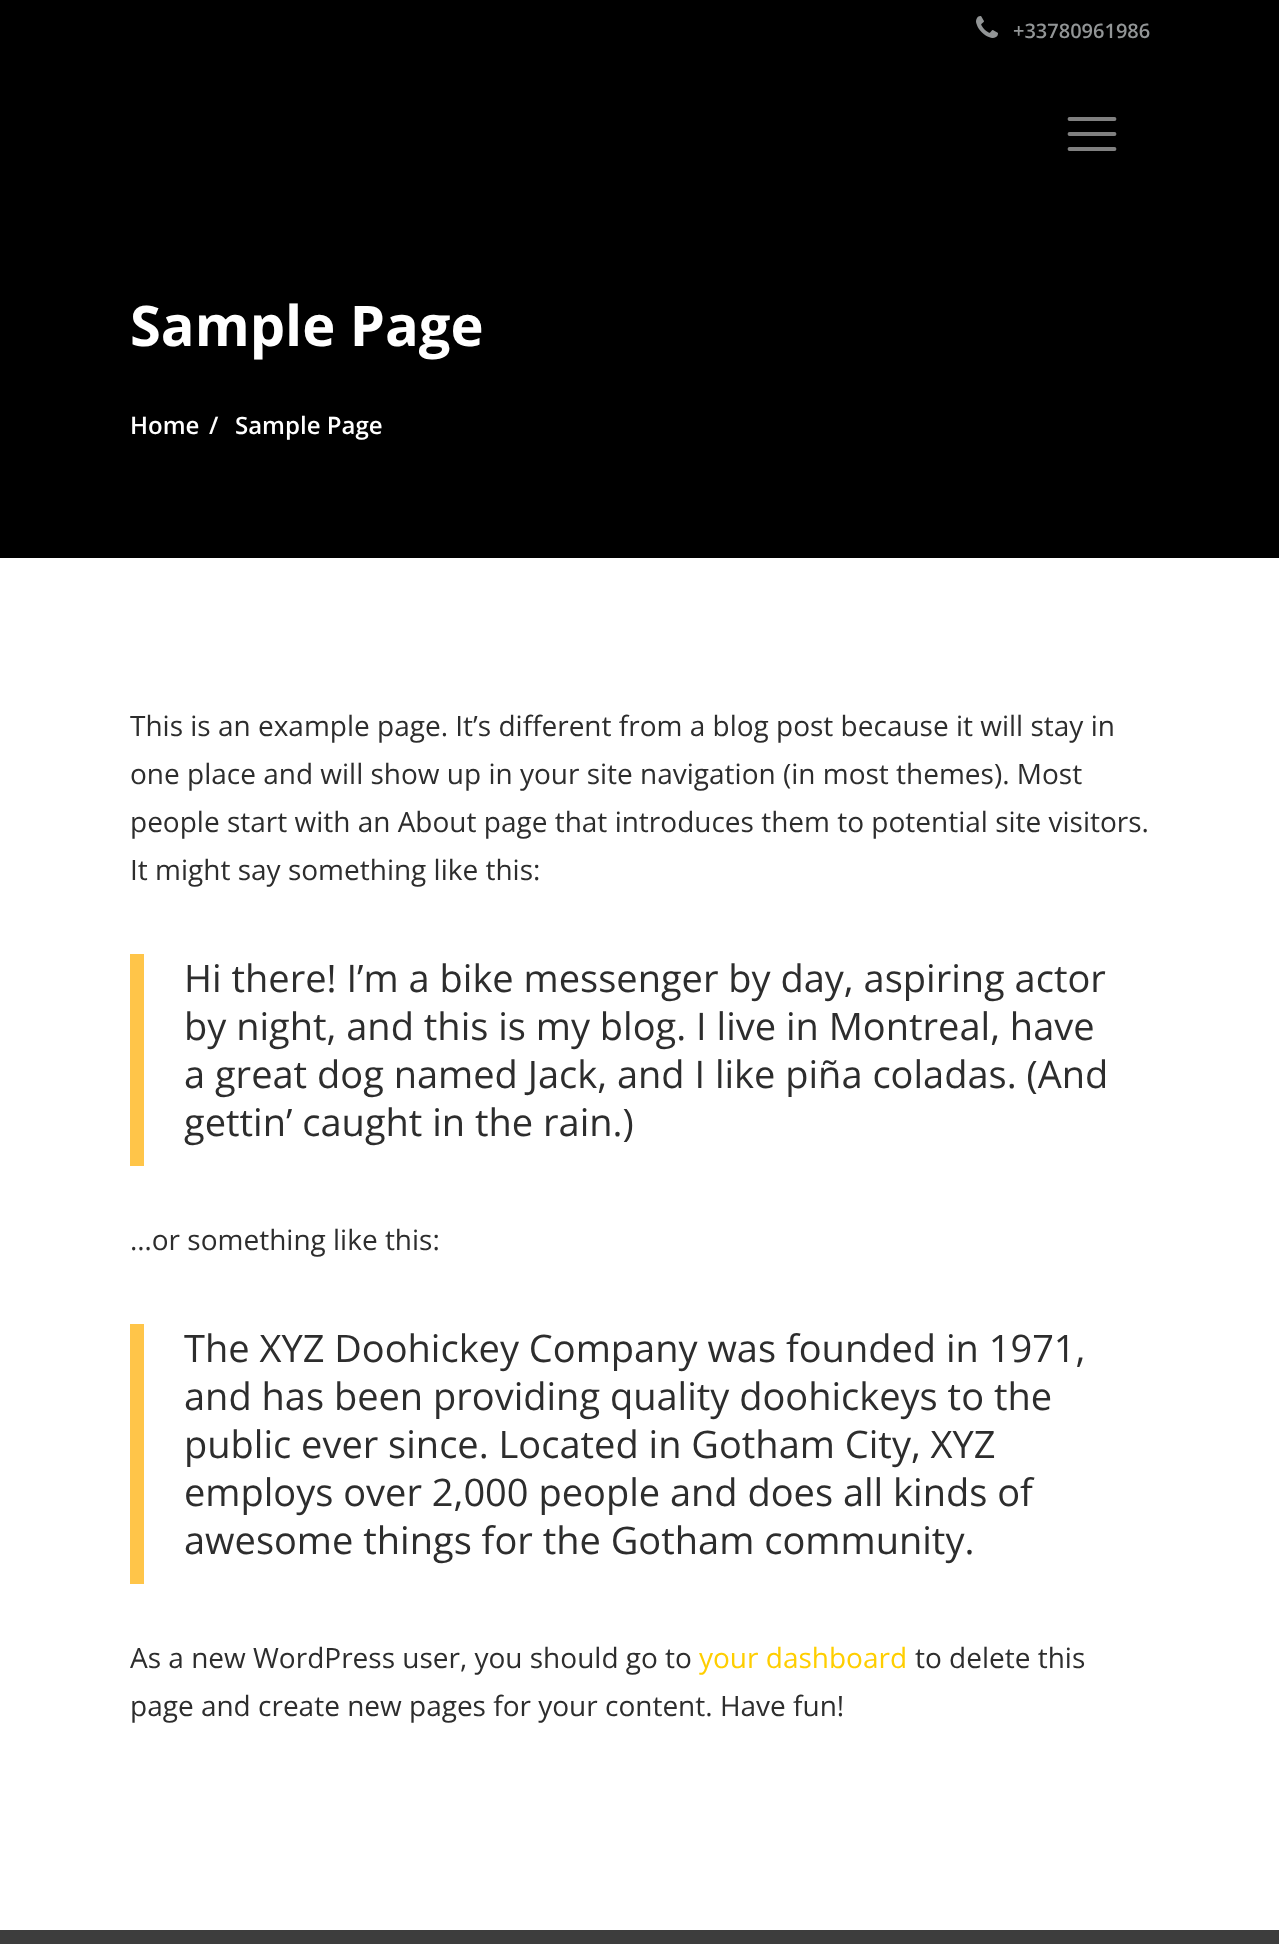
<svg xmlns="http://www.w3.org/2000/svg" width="1279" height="1944">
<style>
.a{font:600 20px Open Sans;fill:#929596}
.b{font:bold 56px Open Sans;fill:#fff}
.c{font:600 24px Open Sans;fill:#fff}
.d{font:28px Open Sans;fill:#2d2d2d}
.e{font:38px Open Sans;fill:#2d2d2d}
.f{font:28px Open Sans;fill:#ffce00}
</style>
<rect width="100%" height="100%" fill="#fff"/>
<path fill="#000" d="M0 0h1279v558H0z"/>
<image href="1.png" x="976" y="16" width="22" height="22"/>
<path fill="none" stroke="#808080" stroke-width="3.8" stroke-linecap="round" d="M1069.5 119h45m-45 15h45m-45 15h45"/>
<path fill="#ffc549" d="M130 954h14v212H130z"/>
<path fill="#ffc549" d="M130 1324h14v260H130z"/>
<path fill="#3d3d3d" d="M0 1930h1279v14H0z"/>
<text class="a" x="1013" y="38">+33780961986</text>
<text class="b" x="130" y="346">Sample Page</text>
<text class="c" x="130" y="434">Home</text>
<text class="c" x="209" y="434">/</text>
<text class="c" x="235" y="434">Sample Page</text>
<text class="d" x="130" y="736">This is an example page. It’s different from a blog post because it will stay in</text>
<text class="d" x="130" y="784">one place and will show up in your site navigation (in most themes). Most</text>
<text class="d" x="130" y="832">people start with an About page that introduces them to potential site visitors.</text>
<text class="d" x="130" y="880">It might say something like this:</text>
<text class="e" x="184" y="992">Hi there! I’m a bike messenger by day, aspiring actor</text>
<text class="e" x="184" y="1040">by night, and this is my blog. I live in Montreal, have</text>
<text class="e" x="184" y="1088">a great dog named Jack, and I like piña coladas. (And</text>
<text class="e" x="184" y="1136">gettin’ caught in the rain.)</text>
<text class="d" x="130" y="1250">…or something like this:</text>
<text class="e" x="184" y="1362">The XYZ Doohickey Company was founded in 1971,</text>
<text class="e" x="184" y="1410">and has been providing quality doohickeys to the</text>
<text class="e" x="184" y="1458">public ever since. Located in Gotham City, XYZ</text>
<text class="e" x="184" y="1506">employs over 2,000 people and does all kinds of</text>
<text class="e" x="184" y="1554">awesome things for the Gotham community.</text>
<text class="d" x="130" y="1668">As a new WordPress user, you should go to</text>
<text class="f" x="699" y="1668">your dashboard</text>
<text class="d" x="915" y="1668">to delete this</text>
<text class="d" x="130" y="1716">page and create new pages for your content. Have fun!</text>
</svg>
